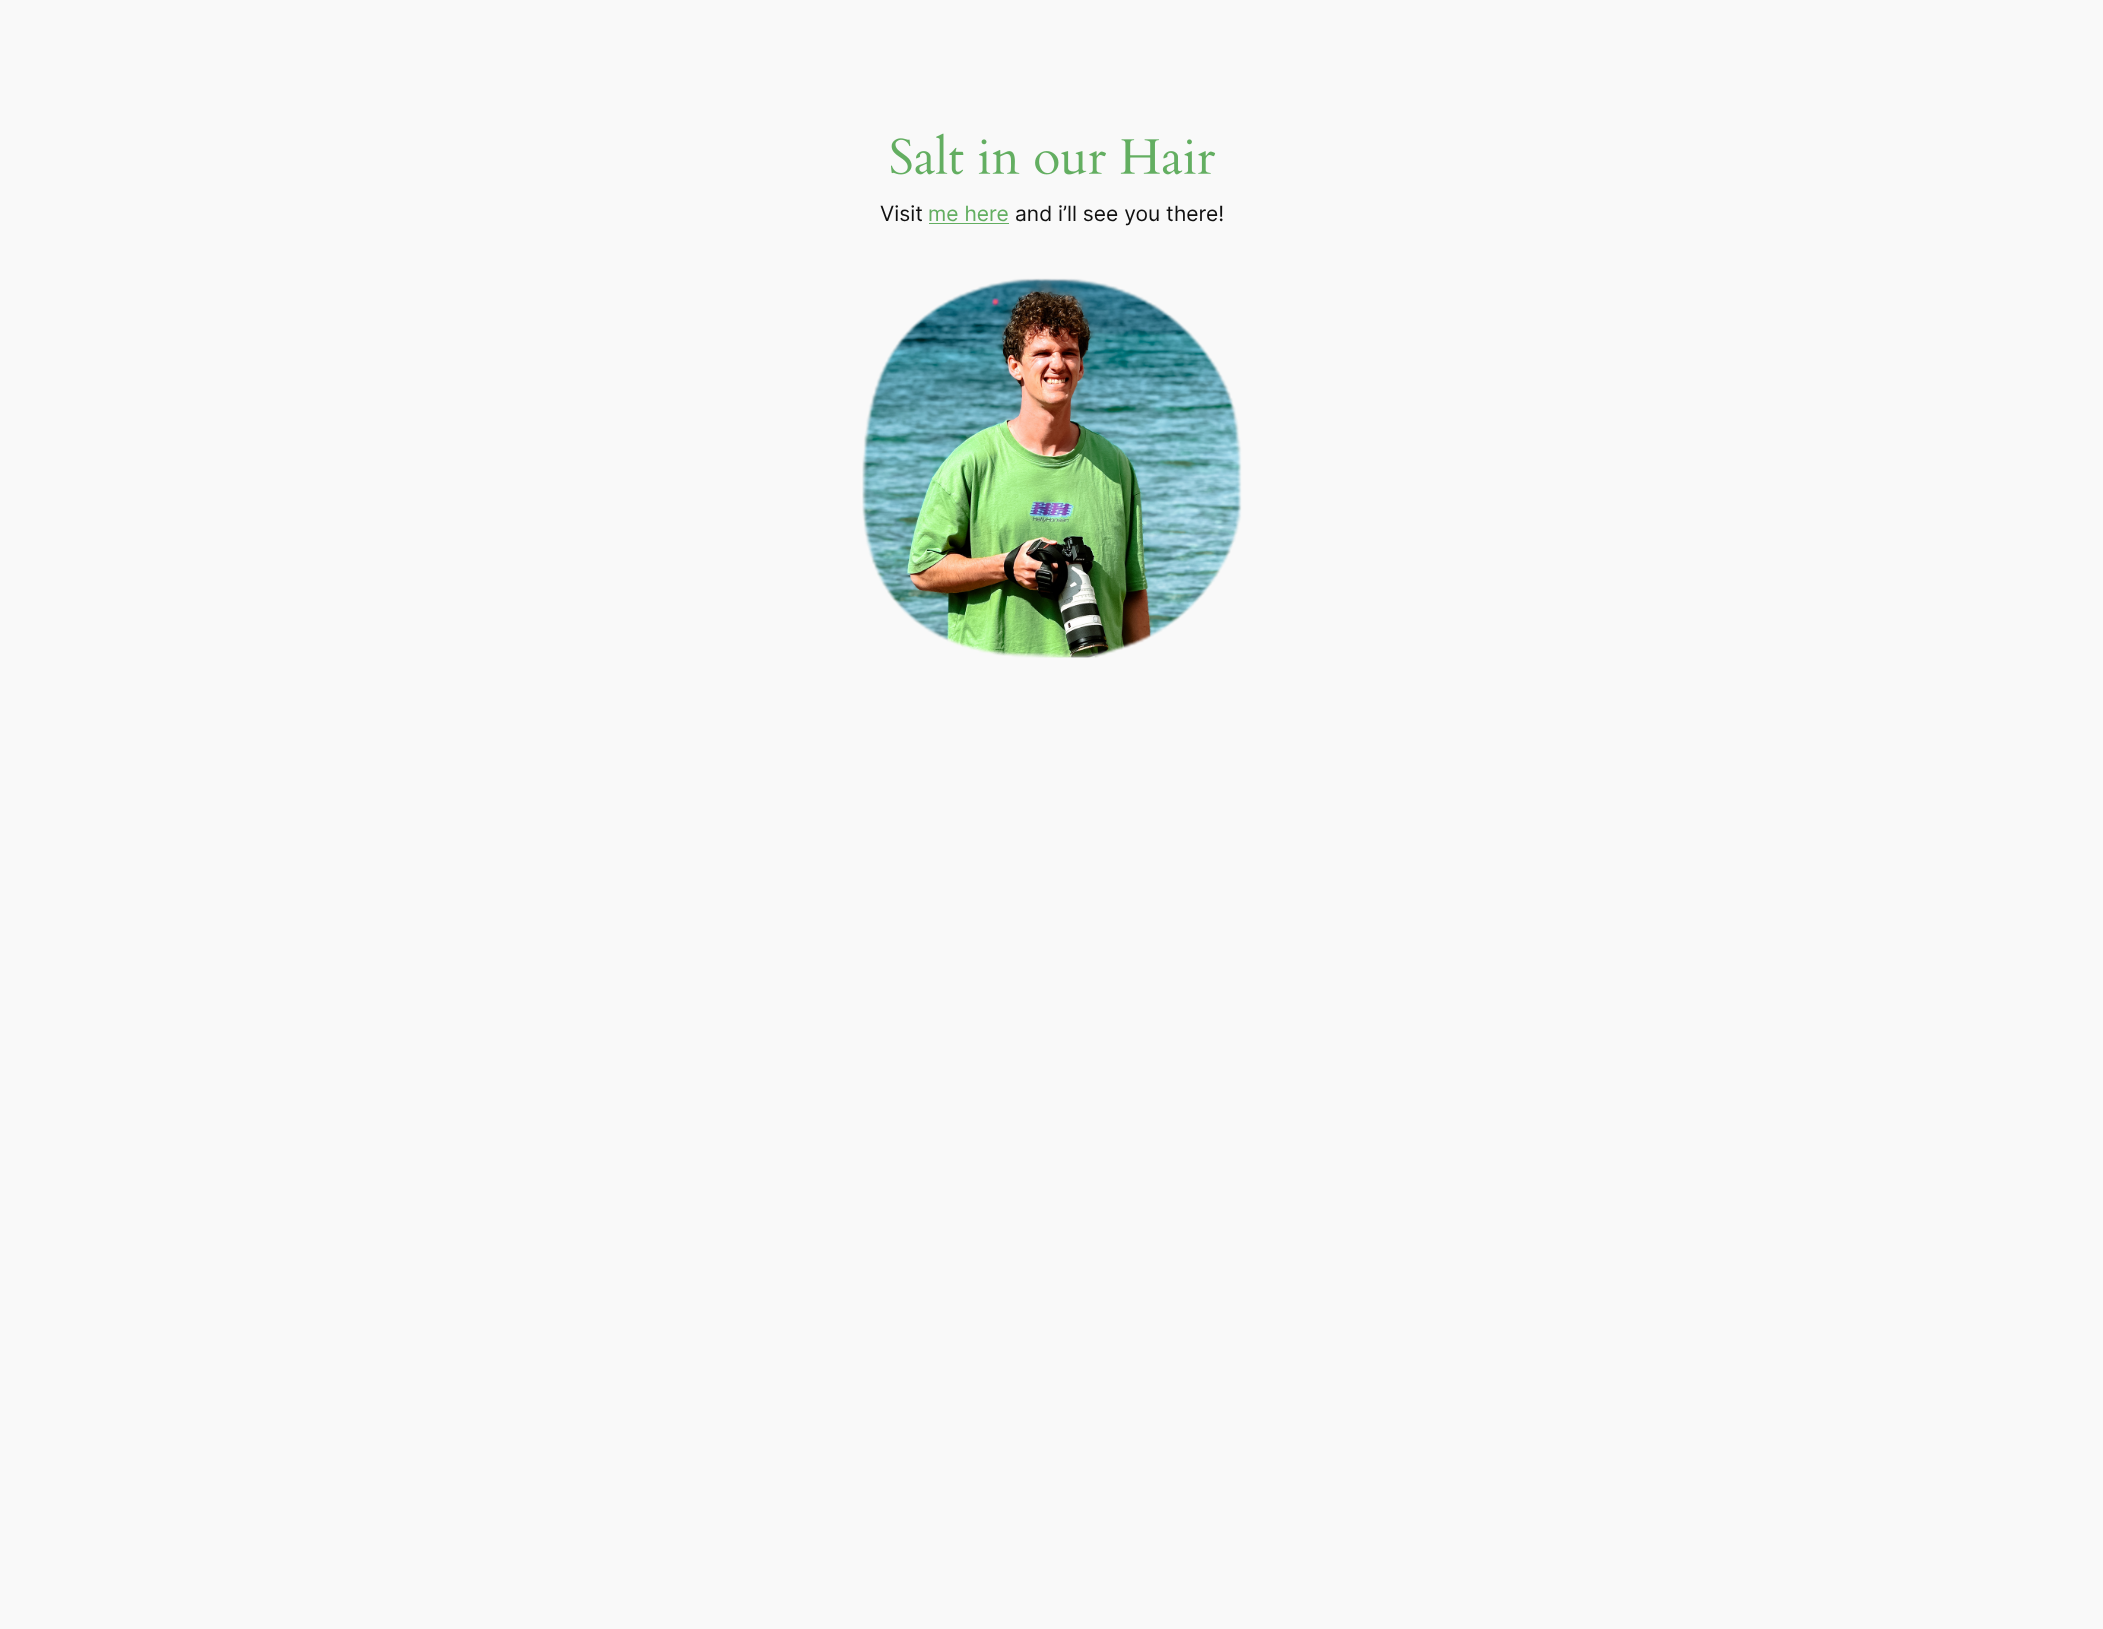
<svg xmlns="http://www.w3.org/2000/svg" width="2103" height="1629">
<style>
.a{font:21px Inter;fill:#111}
.b{font:21px Inter;fill:#63ae61}
</style>
<rect width="100%" height="100%" fill="#f9f9f9"/>
<image href="1.png" x="891" y="133" width="325" height="42"/>
<path fill="#63ae61" d="M929 223h80v1H929z"/>
<image href="2.png" x="862" y="278" width="380" height="380"/>
<text class="a" x="880" y="221">Visit</text>
<text class="b" x="928" y="221">me here</text>
<text class="a" x="1015" y="221">and i’ll see you there!</text>
</svg>
